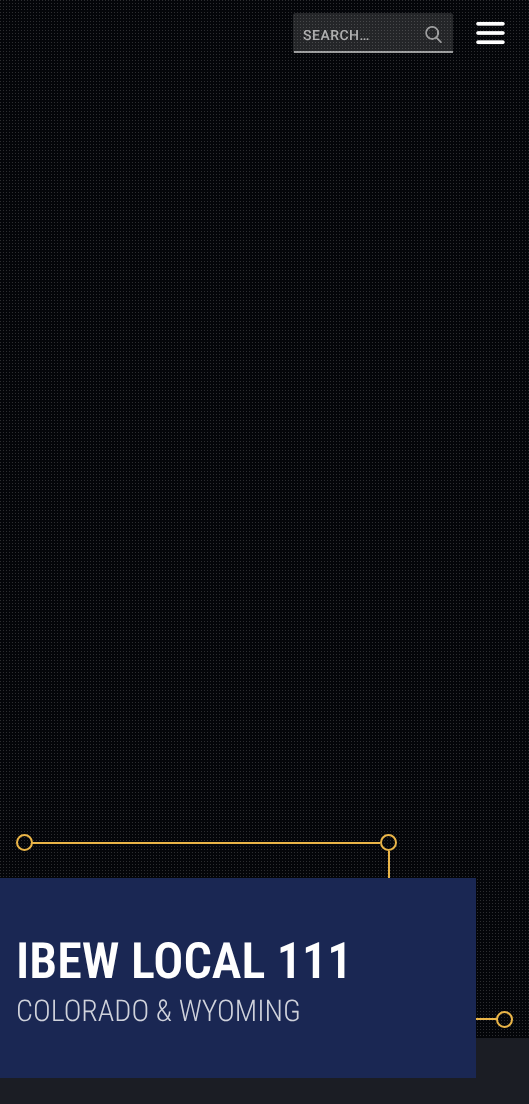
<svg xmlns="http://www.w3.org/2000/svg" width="529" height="1104">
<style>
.a{font:500 14px Roboto;letter-spacing:0.5px;fill:#b0b0b1}
.b{font:600 50px Roboto Condensed;fill:#fefefe}
.c{font:300 30px Roboto Condensed;fill:#d0d3dc}
</style>
<rect width="100%" height="100%" fill="#1b1d24"/>
<path fill="#000" d="M0 0h529v1038H0z"/>
<image href="3.png" x="0" y="0" width="529" height="1038"/>
<path fill="#ffffff21" d="M295 13h156c1 0 2 1 2 2v37c0 .5-.5 1-1 1h-158c-.5 0-1-.5-1-1v-37c0-1 1-2 2-2z"/>
<path fill="#ffffff8a" d="M294 51h159v2H294z"/>
<image href="1.png" x="425" y="26" width="17" height="17"/>
<image href="2.png" x="476" y="21" width="29" height="24"/>
<circle fill="none" stroke="#eab548" stroke-width="2" cx="24.5" cy="842.5" r="7.5"/>
<path fill="#eab548" d="M32 842h348v2H32z"/>
<circle fill="none" stroke="#eab548" stroke-width="2" cx="388.5" cy="842.5" r="7.5"/>
<path fill="#eab548" d="M388 851h2v27H388z"/>
<path fill="#eab548" d="M476 1018h21v2H476z"/>
<circle fill="none" stroke="#eab548" stroke-width="2" cx="504.5" cy="1019.5" r="7.5"/>
<path fill="#1a2753" d="M0 878h476v200H0z"/>
<text class="a" x="303" y="40">SEARCH…</text>
<text class="b" x="16" y="978">IBEW LOCAL 111</text>
<text class="c" x="16" y="1021">COLORADO &amp; WYOMING</text>
</svg>
